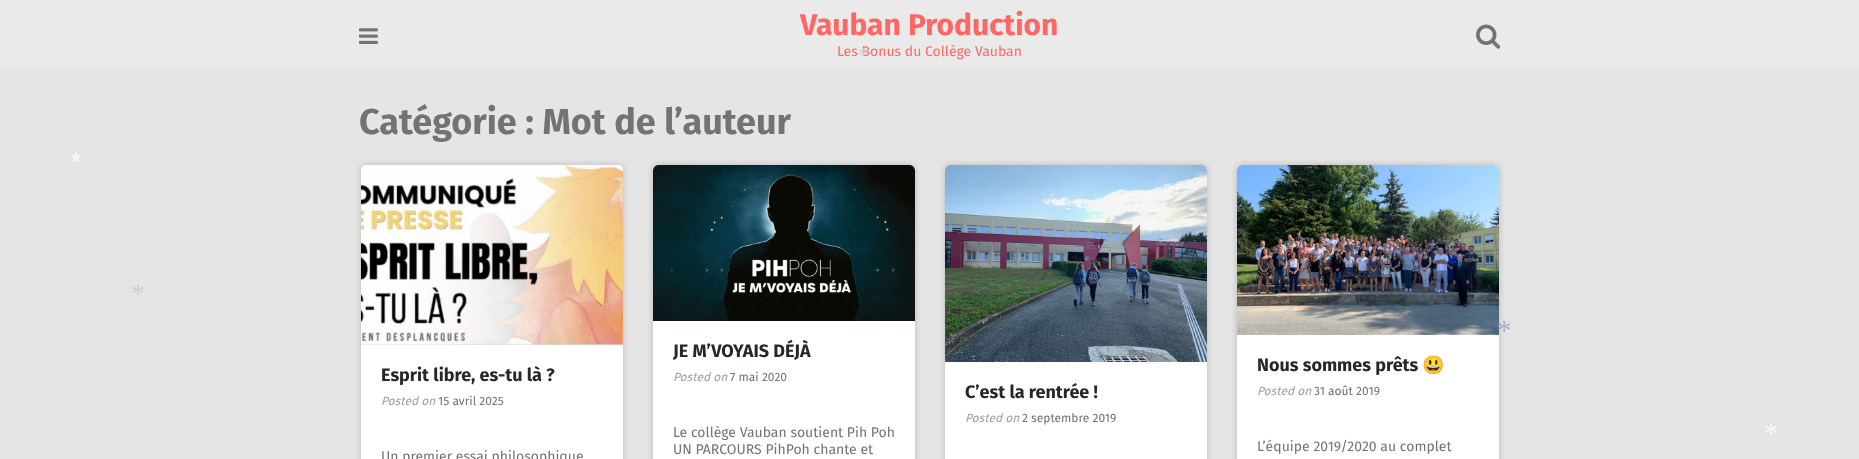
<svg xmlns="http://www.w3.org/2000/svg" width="1859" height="459">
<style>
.a{font:bold 30px Fira Sans;fill:#f66}
.b{font:14px Fira Sans;fill:#f66}
.c{font:bold 36px Fira Sans;fill:#737373}
.d{font:bold 18px Fira Sans;fill:#282724}
.e{font:italic 12px Fira Sans;fill:#a0a0a0}
.f{font:12px Fira Sans;fill:#737373}
.g{font:14px Fira Sans;fill:#737373}
.h{font:bold 18px Noto Color Emoji;fill:#282724}
.i{font:21px Liberation Serif;fill:#ccd}
.j{font:25px Liberation Sans;fill:#f0ffff}
.k{font:28px Liberation Serif;fill:#ccd}
.l{font:29px Liberation Serif;fill:#aac}
.m{font:28px Liberation Serif;fill:#f0ffff}
</style>
<rect width="100%" height="100%" fill="#e5e5e5"/>
<path fill="#eaeaea" d="M0 0h1859v69H0z"/>
<image href="1.png" x="359" y="28" width="19" height="16"/>
<image href="2.png" x="1476" y="24" width="25" height="25"/>
<rect fill="#00000033" filter="blur(3px)" x="361" y="165" width="262" height="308" rx="5"/>
<rect fill="#fff" x="361" y="165" width="262" height="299" rx="5"/>
<image href="3.png" x="361" y="165" width="262" height="180"/>
<rect fill="#00000033" filter="blur(3px)" x="653" y="165" width="262" height="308" rx="5"/>
<rect fill="#fff" x="653" y="165" width="262" height="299" rx="5"/>
<image href="4.png" x="653" y="165" width="262" height="156"/>
<rect fill="#00000033" filter="blur(3px)" x="945" y="165" width="262" height="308" rx="5"/>
<rect fill="#fff" x="945" y="165" width="262" height="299" rx="5"/>
<image href="5.png" x="945" y="165" width="262" height="197"/>
<rect fill="#00000033" filter="blur(3px)" x="1237" y="165" width="262" height="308" rx="5"/>
<rect fill="#fff" x="1237" y="165" width="262" height="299" rx="5"/>
<image href="6.png" x="1237" y="165" width="262" height="170"/>
<text class="a" x="800" y="35">Vauban Production</text>
<text class="b" x="837" y="56">Les Bonus du Collège Vauban</text>
<text class="c" x="359" y="134">Catégorie : Mot de l’auteur</text>
<text class="d" x="381" y="381">Esprit libre, es-tu là ?</text>
<text class="e" x="381" y="405">Posted on</text>
<text class="f" x="438" y="405">15 avril 2025</text>
<text class="g" x="381" y="461">Un premier essai philosophique</text>
<text class="d" x="673" y="357">JE M’VOYAIS DÉJÀ</text>
<text class="e" x="673" y="381">Posted on</text>
<text class="f" x="730" y="381">7 mai 2020</text>
<text class="g" x="673" y="437">Le collège Vauban soutient Pih Poh</text>
<text class="g" x="673" y="454">UN PARCOURS PihPoh chante et</text>
<text class="d" x="965" y="398">C’est la rentrée !</text>
<text class="e" x="965" y="422">Posted on</text>
<text class="f" x="1022" y="422">2 septembre 2019</text>
<text class="d" x="1257" y="371">Nous sommes prêts</text>
<text class="h" x="1422" y="371">😃</text>
<text class="e" x="1257" y="395">Posted on</text>
<text class="f" x="1314" y="395">31 août 2019</text>
<text class="g" x="1257" y="451">L’équipe 2019/2020 au complet</text>
<text class="i" x="858" y="62">*</text>
<text class="j" x="71" y="170">*</text>
<text class="k" x="131" y="303">*</text>
<text class="l" x="1497" y="340">*</text>
<text class="m" x="1764" y="442">*</text>
</svg>
